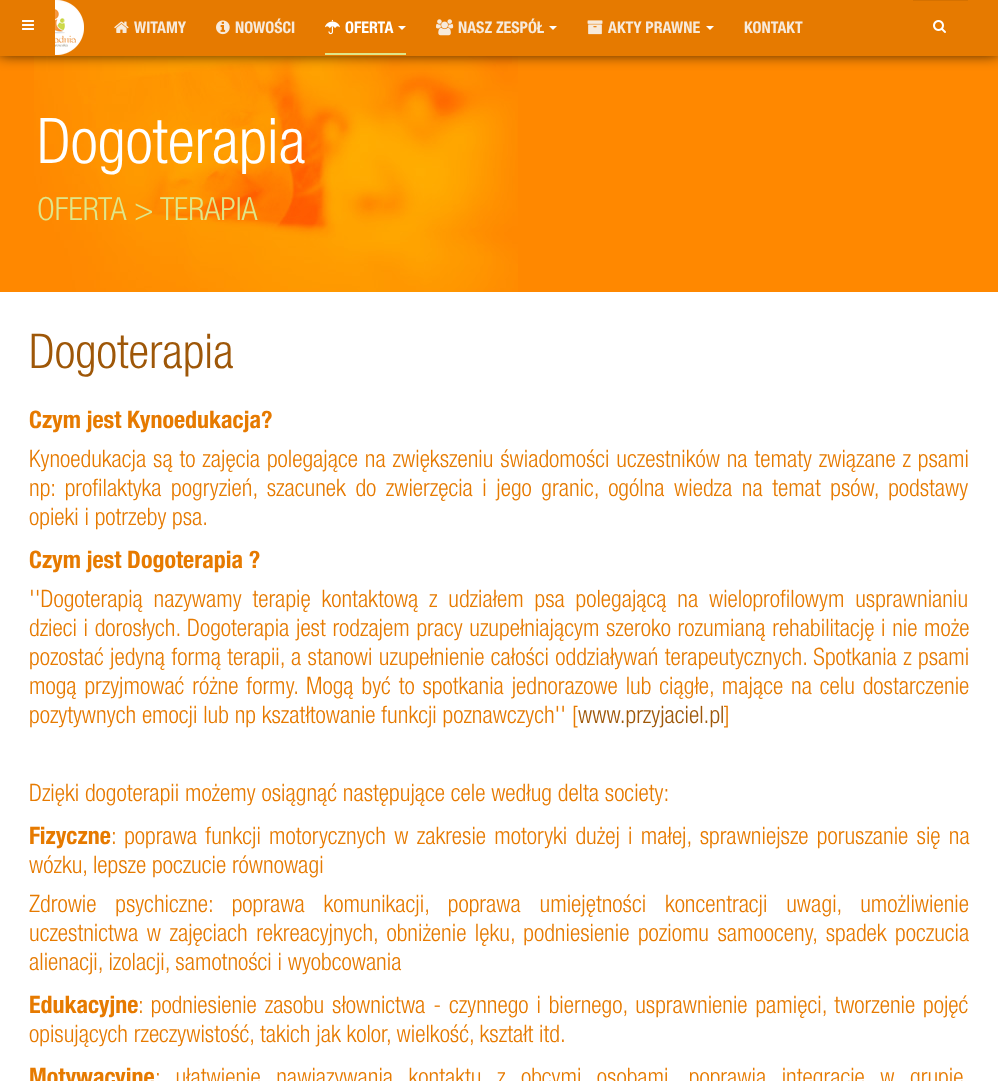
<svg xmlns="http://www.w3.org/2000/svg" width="998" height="1081">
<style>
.a{font:bold 16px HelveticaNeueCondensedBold;fill:#f7eadb}
.b{font:bold 16px HelveticaNeueCondensedBold;fill:#fff}
.c{font:300 63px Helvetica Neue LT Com;fill:#fff}
.d{font:300 32px Helvetica Neue LT Com;fill:#dfe689}
.e{font:300 48px Helvetica Neue LT Com;fill:#9e5708}
.f{font:bold 24px HelveticaNeueCondensedBold;fill:#e67a00}
.g{font:300 24px Helvetica Neue LT Com;fill:#e67a00}
.h{font:300 24px Helvetica Neue LT Com;fill:#9e5708}
</style>
<rect width="100%" height="100%" fill="#fff"/>
<path fill="#f80" d="M0 56h998v236H0z"/>
<image href="9.png" x="34" y="56" width="484" height="236"/>
<path fill="#000" filter="blur(7.5px)" d="M-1 -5h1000v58H-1z"/>
<path fill="#e67a00" d="M0 0h998v56H0z"/>
<image href="1.png" x="22" y="20" width="12" height="10"/>
<image href="2.png" x="55" y="0" width="29" height="55"/>
<path fill="#d57100" d="M913 0h55v1H913z"/>
<image href="3.png" x="933" y="20" width="13" height="13"/>
<image href="4.png" x="114" y="21" width="15" height="12"/>
<image href="5.png" x="216" y="20" width="14" height="15"/>
<path fill="#dfe689" d="M325 53h81v2H325z"/>
<image href="6.png" x="325" y="19" width="15" height="16"/>
<path fill="#fff" d="M398 26h8l-4 4z"/>
<image href="7.png" x="436" y="19" width="18" height="17"/>
<path fill="#fff" d="M549 26h8l-4 4z"/>
<image href="8.png" x="587" y="20" width="16" height="15"/>
<path fill="#fff" d="M706 26h8l-4 4z"/>
<text class="a" x="134" y="33">WITAMY</text>
<text class="a" x="235" y="33">NOWOŚCI</text>
<text class="b" x="345" y="33">OFERTA</text>
<text class="a" x="458" y="33">NASZ ZESPÓŁ</text>
<text class="a" x="608" y="33">AKTY PRAWNE</text>
<text class="a" x="744" y="33">KONTAKT</text>
<text class="c" x="37" y="163">Dogoterapia</text>
<text class="d" x="37" y="220">OFERTA &gt; TERAPIA</text>
<text class="e" x="29" y="368">Dogoterapia</text>
<text class="f" x="29" y="428">Czym jest Kynoedukacja?</text>
<text class="g" x="29" y="467" word-spacing="1.1">Kynoedukacja są to zajęcia polegające na zwiększeniu świadomości uczestników na tematy związane z psami</text>
<text class="g" x="29" y="496" word-spacing="3.75">np: profilaktyka pogryzień, szacunek do zwierzęcia i jego granic, ogólna wiedza na temat psów, podstawy</text>
<text class="g" x="29" y="525">opieki i potrzeby psa.</text>
<text class="f" x="29" y="568">Czym jest Dogoterapia ?</text>
<text class="g" x="29" y="607" word-spacing="5">''Dogoterapią nazywamy terapię kontaktową z udziałem psa polegającą na wieloprofilowym usprawnianiu</text>
<text class="g" x="29" y="636" word-spacing="0.9">dzieci i dorosłych. Dogoterapia jest rodzajem pracy uzupełniającym szeroko rozumianą rehabilitację i nie może</text>
<text class="g" x="29" y="665" word-spacing="0.6">pozostać jedyną formą terapii, a stanowi uzupełnienie całości oddziaływań terapeutycznych. Spotkania z psami</text>
<text class="g" x="29" y="694" word-spacing="2.1">mogą przyjmować różne formy. Mogą być to spotkania jednorazowe lub ciągłe, mające na celu dostarczenie</text>
<text class="g" x="29" y="723">pozytywnych emocji lub np kszatłtowanie funkcji poznawczych'' [</text>
<text class="h" x="578" y="723">www.przyjaciel.pl</text>
<text class="g" x="724" y="723">]</text>
<text class="g" x="29" y="801">Dzięki dogoterapii możemy osiągnąć następujące cele według delta society:</text>
<text class="f" x="29" y="844">Fizyczne</text>
<text class="g" x="111" y="844" word-spacing="2.5">: poprawa funkcji motorycznych w zakresie motoryki dużej i małej, sprawniejsze poruszanie się na</text>
<text class="g" x="29" y="873">wózku, lepsze poczucie równowagi</text>
<text class="g" x="29" y="912" word-spacing="13">Zdrowie psychiczne: poprawa komunikacji, poprawa umiejętności koncentracji uwagi, umożliwienie</text>
<text class="g" x="29" y="941" word-spacing="2.75">uczestnictwa w zajęciach rekreacyjnych, obniżenie lęku, podniesienie poziomu samooceny, spadek poczucia</text>
<text class="g" x="29" y="970">alienacji, izolacji, samotności i wyobcowania</text>
<text class="f" x="29" y="1013">Edukacyjne</text>
<text class="g" x="138" y="1013" word-spacing="2.1">: podniesienie zasobu słownictwa - czynnego i biernego, usprawnienie pamięci, tworzenie pojęć</text>
<text class="g" x="29" y="1042">opisujących rzeczywistość, takich jak kolor, wielkość, kształt itd.</text>
<text class="f" x="29" y="1085">Motywacyjne</text>
<text class="g" x="155" y="1085" word-spacing="9.75">: ułatwienie nawiązywania kontaktu z obcymi osobami, poprawia integracje w grupie</text>
</svg>
